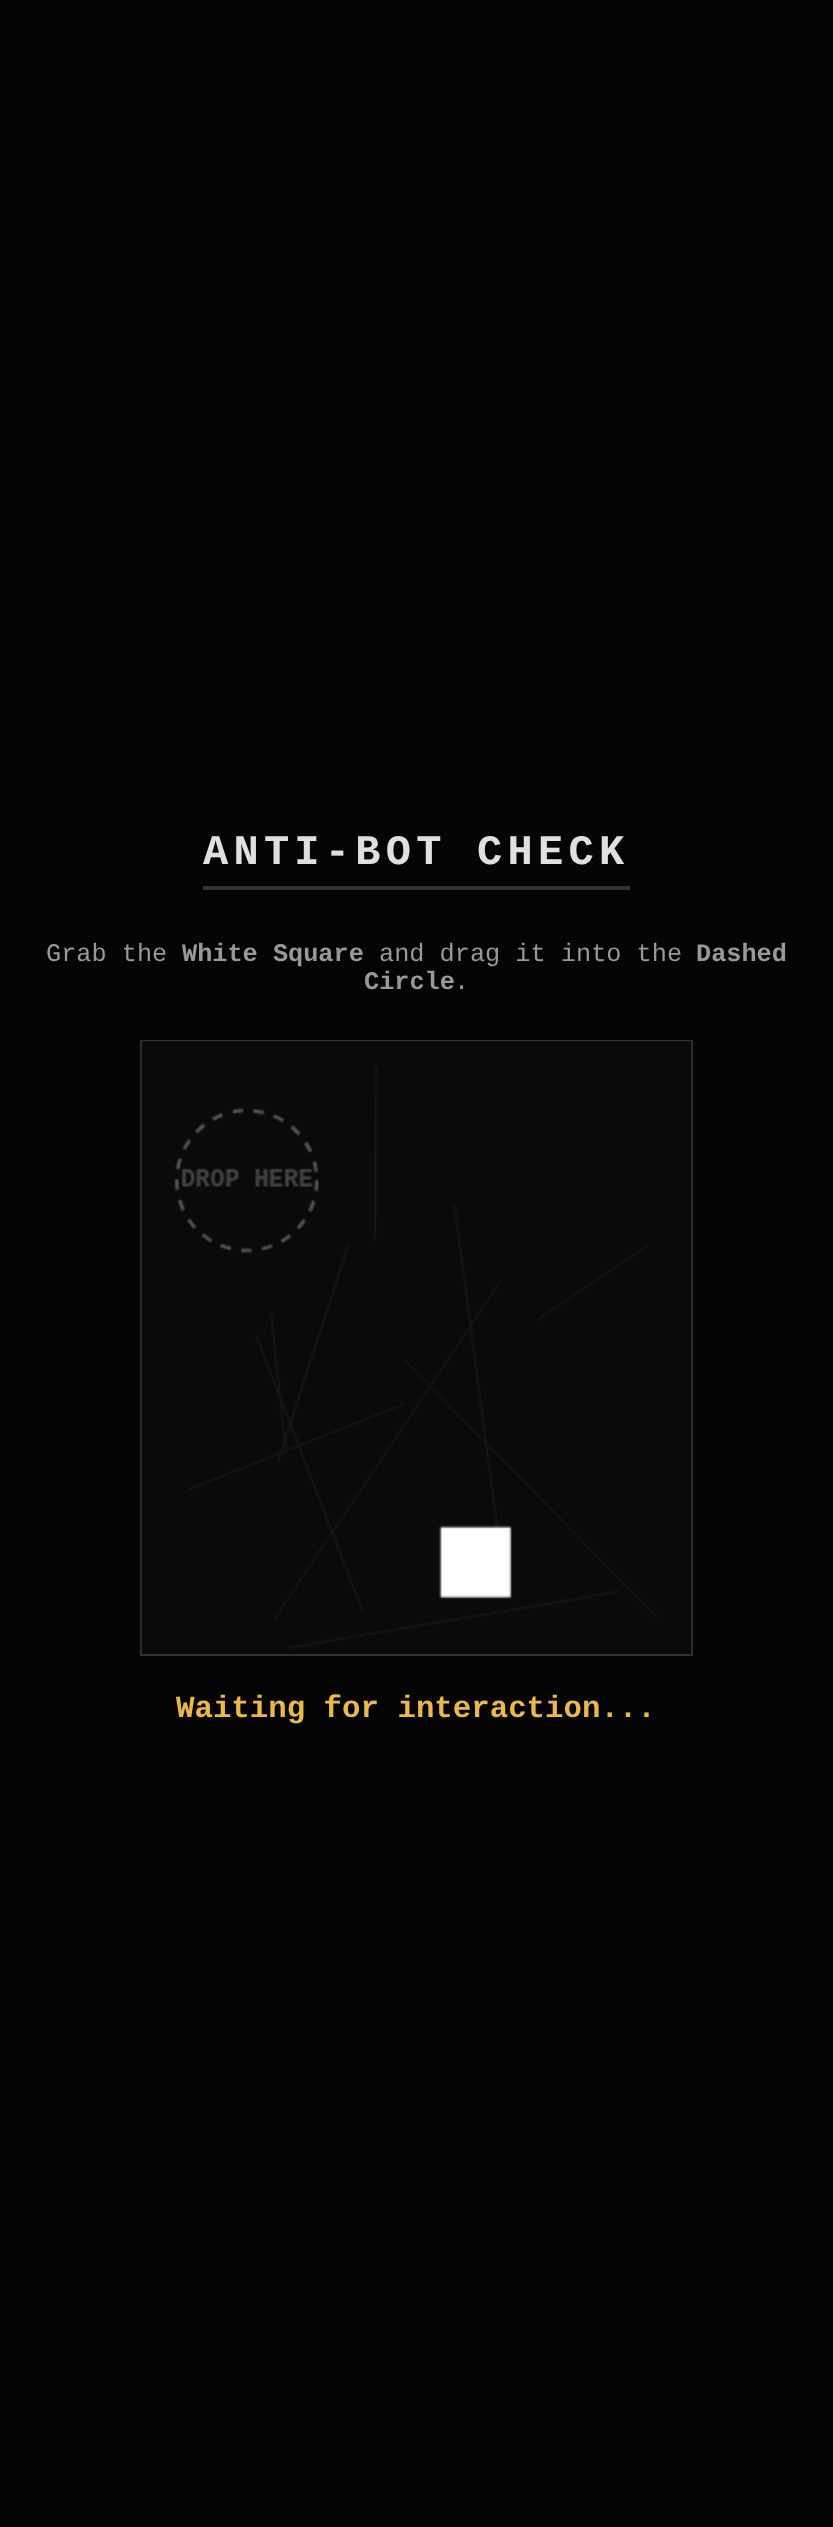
<svg xmlns="http://www.w3.org/2000/svg" width="833" height="2527">
<style>
.a{font:bold 42px Liberation Mono;letter-spacing:5.25px;fill:#e0e0e0}
.b{font:25.25px Liberation Mono;fill:#999}
.c{font:bold 25.25px Liberation Mono;fill:#999}
.d{font:bold 30.75px Liberation Mono;fill:#e9b949}
</style>
<rect width="100%" height="100%" fill="#050505"/>
<path fill="#333" d="M203 886h427v4H203z"/>
<path fill="none" stroke="#333" stroke-width="2" d="M141 1041h551v614H141z"/>
<image href="1.png" x="141" y="1041" width="551" height="613"/>
<text class="a" x="203" y="864">ANTI-BOT CHECK</text>
<text class="b" x="46" y="961">Grab the</text>
<text class="c" x="182" y="961">White Square</text>
<text class="b" x="379" y="961">and drag it into the</text>
<text class="c" x="696" y="961">Dashed</text>
<text class="c" x="364" y="989">Circle</text>
<text class="b" x="454" y="989">.</text>
<text class="d" x="176" y="1717">Waiting for interaction...</text>
</svg>
